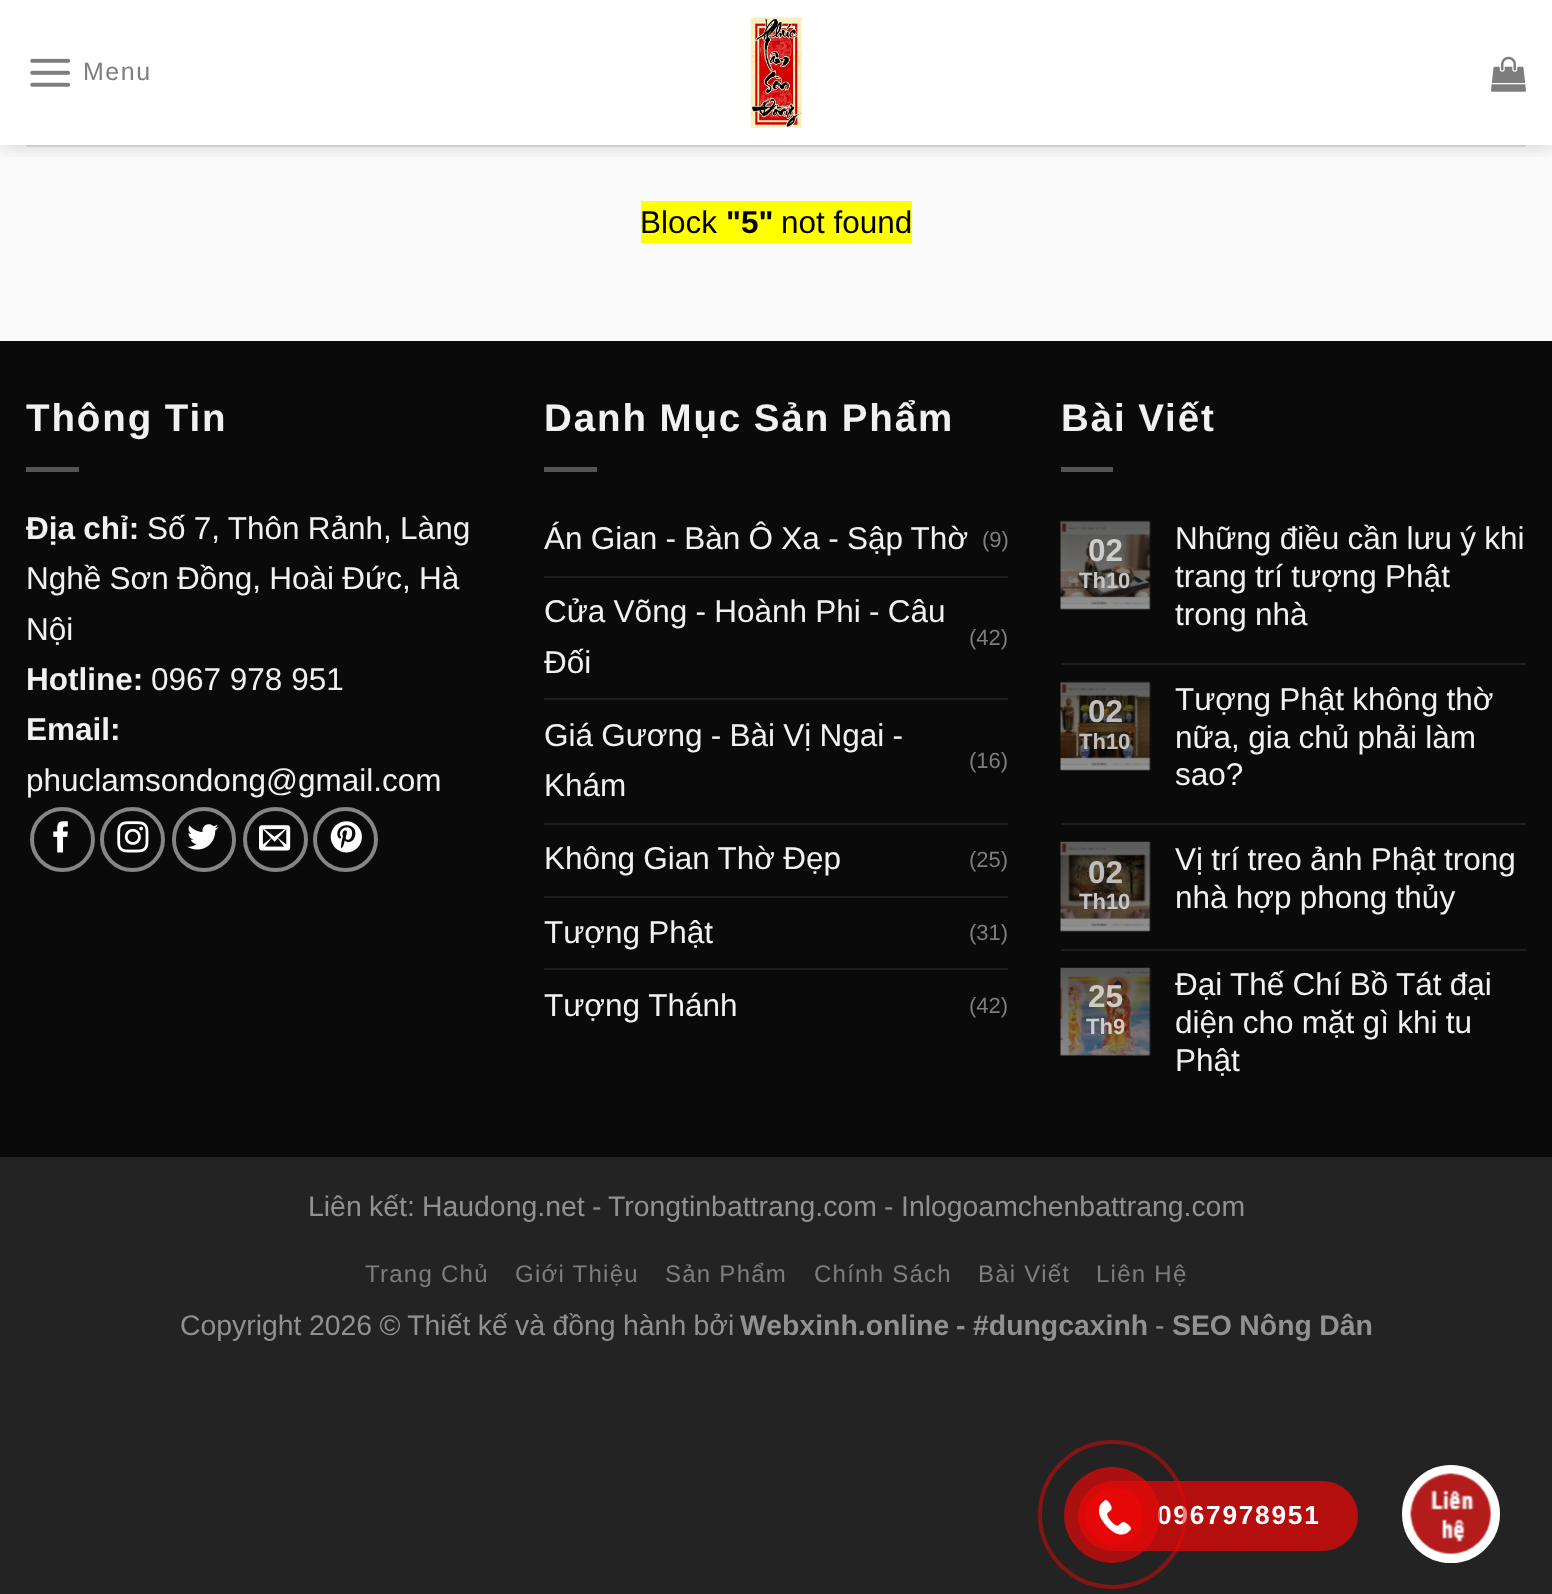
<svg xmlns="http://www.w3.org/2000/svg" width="1552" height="1594">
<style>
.a{font:25px Liberation Sans;letter-spacing:1.5px;fill:#7e7e7e}
.b{font:31.5px Liberation Sans;fill:#000}
.c{font:bold 31.5px Liberation Sans;fill:#000}
.d{font:bold 38.5px Liberation Sans;letter-spacing:1.9px;fill:#f1f1f1}
.e{font:bold 31.5px Liberation Sans;fill:#f1f1f1}
.f{font:31.5px Liberation Sans;fill:#f1f1f1}
.g{font:22px Liberation Sans;fill:#7e7e7e}
.h{font:bold 31.5px Liberation Sans;fill:#cdcdcc}
.i{font:bold 22px Liberation Sans;fill:#c7c5c4}
.j{font:bold 31.5px Liberation Sans;fill:#c1bfbd}
.k{font:bold 22px Liberation Sans;fill:#c1bfbd}
.l{font:bold 31.5px Liberation Sans;fill:#cfcbc5}
.m{font:bold 22px Liberation Sans;fill:#cfcbc5}
.n{font:28.4px Liberation Sans;fill:#919191}
.o{font:24px Liberation Sans;letter-spacing:1.25px;fill:#7e7e7e}
.p{font:bold 28.4px Liberation Sans;fill:#919191}
.q{font:bold 26.25px Liberation Sans;letter-spacing:1.75px;fill:#fff}
</style>
<defs>
<clipPath id="clip1"><path d="M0 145h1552v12H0z"/></clipPath>
</defs>
<rect width="100%" height="100%" fill="#232323"/>
<path fill="#fff" d="M0 0h1552v145H0z"/>
<path fill="#fafafa" d="M0 145h1552v196H0z"/>
<g clip-path="url(#clip1)">
<path fill="#00000026" filter="blur(9px)" d="M2 2h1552v145H2z"/>
</g>
<image href="1.png" x="30" y="58" width="41" height="29"/>
<image href="2.png" x="750" y="17" width="52" height="111"/>
<image href="3.png" x="1491" y="56" width="35" height="36"/>
<path fill="#0000001a" d="M26 145h1500v2H26z"/>
<path fill="#ff0" d="M641 201h271v42H641z"/>
<path fill="#0a0a0a" d="M0 341h1552v816H0z"/>
<path fill="#545454" d="M26 467h53v5H26z"/>
<circle fill="none" stroke="#858585" stroke-width="4" cx="62.5" cy="839.5" r="30.5"/>
<image href="4.png" x="53" y="821" width="15" height="32"/>
<circle fill="none" stroke="#858585" stroke-width="4" cx="132.5" cy="839.5" r="30.5"/>
<image href="5.png" x="117" y="821" width="32" height="32"/>
<rect fill="none" stroke="#858585" stroke-width="4" x="174" y="809" width="60" height="61" rx="30"/>
<image href="6.png" x="187" y="824" width="32" height="26"/>
<circle fill="none" stroke="#858585" stroke-width="4" cx="275.5" cy="839.5" r="30.5"/>
<image href="7.png" x="259" y="825" width="32" height="26"/>
<circle fill="none" stroke="#858585" stroke-width="4" cx="345.5" cy="839.5" r="30.5"/>
<image href="8.png" x="330" y="821" width="32" height="32"/>
<path fill="#545454" d="M544 467h53v5H544z"/>
<path fill="#1e1e1e" d="M544 576h464v2H544z"/>
<path fill="#1e1e1e" d="M544 698h464v2H544z"/>
<path fill="#1e1e1e" d="M544 823h464v2H544z"/>
<path fill="#1e1e1e" d="M544 896h464v2H544z"/>
<path fill="#1e1e1e" d="M544 968h464v2H544z"/>
<path fill="#545454" d="M1061 467h52v5H1061z"/>
<image href="9.png" x="1060" y="520" width="91" height="90"/>
<path fill="#1e1e1e" d="M1061 663h465v2H1061z"/>
<image href="10.png" x="1060" y="681" width="91" height="90"/>
<path fill="#1e1e1e" d="M1061 823h465v2H1061z"/>
<image href="11.png" x="1060" y="841" width="91" height="91"/>
<path fill="#1e1e1e" d="M1061 949h465v2H1061z"/>
<image href="12.png" x="1060" y="967" width="91" height="89"/>
<rect fill="#e60808bf" x="1078" y="1481" width="280" height="70" rx="35"/>
<circle fill="#fff" stroke="#fff" stroke-width="9" cx="1451" cy="1514" r="44.5"/>
<image href="14.png" x="1410" y="1473" width="82" height="82"/>
<text class="a" x="83" y="80">Menu</text>
<text class="b" x="640" y="233">Block</text>
<text class="c" x="726" y="233">"5"</text>
<text class="b" x="781" y="233">not found</text>
<text class="d" x="26" y="431" word-spacing="-1">Thông Tin</text>
<text class="e" x="26" y="539" word-spacing="-0.5">Địa chỉ:</text>
<text class="f" x="147" y="539" word-spacing="-0.5">Số 7, Thôn Rảnh, Làng</text>
<text class="f" x="26" y="589" word-spacing="-0.5">Nghề Sơn Đồng, Hoài Đức, Hà</text>
<text class="f" x="26" y="640">Nội</text>
<text class="e" x="26" y="690">Hotline:</text>
<text class="f" x="151" y="690">0967 978 951</text>
<text class="e" x="26" y="740">Email:</text>
<text class="f" x="26" y="791">phuclamsondong@gmail.com</text>
<text class="d" x="544" y="431" word-spacing="-1">Danh Mục Sản Phẩm</text>
<text class="f" x="544" y="549" word-spacing="-0.5">Án Gian - Bàn Ô Xa - Sập Thờ</text>
<text class="g" x="982" y="547">(9)</text>
<text class="f" x="544" y="622" word-spacing="-0.5">Cửa Võng - Hoành Phi - Câu</text>
<text class="f" x="544" y="673">Đối</text>
<text class="g" x="969" y="645">(42)</text>
<text class="f" x="544" y="746" word-spacing="-0.5">Giá Gương - Bài Vị Ngai -</text>
<text class="f" x="544" y="796">Khám</text>
<text class="g" x="969" y="768">(16)</text>
<text class="f" x="544" y="869" word-spacing="-0.5">Không Gian Thờ Đẹp</text>
<text class="g" x="969" y="867">(25)</text>
<text class="f" x="544" y="943" word-spacing="-0.5">Tượng Phật</text>
<text class="g" x="969" y="940">(31)</text>
<text class="f" x="544" y="1016">Tượng Thánh</text>
<text class="g" x="969" y="1013">(42)</text>
<text class="d" x="1061" y="431" word-spacing="-1">Bài Viết</text>
<text class="h" x="1088" y="561">02</text>
<text class="i" x="1079" y="588">Th10</text>
<text class="f" x="1175" y="549" word-spacing="-0.5">Những điều cần lưu ý khi</text>
<text class="f" x="1175" y="587" word-spacing="-0.5">trang trí tượng Phật</text>
<text class="f" x="1175" y="625" word-spacing="-0.5">trong nhà</text>
<text class="j" x="1088" y="722">02</text>
<text class="k" x="1079" y="749">Th10</text>
<text class="f" x="1175" y="710" word-spacing="-0.5">Tượng Phật không thờ</text>
<text class="f" x="1175" y="748" word-spacing="-0.5">nữa, gia chủ phải làm</text>
<text class="f" x="1175" y="785">sao?</text>
<text class="j" x="1088" y="883">02</text>
<text class="i" x="1079" y="909">Th10</text>
<text class="f" x="1175" y="870" word-spacing="-0.5">Vị trí treo ảnh Phật trong</text>
<text class="f" x="1175" y="908" word-spacing="-0.5">nhà hợp phong thủy</text>
<text class="l" x="1088" y="1007">25</text>
<text class="m" x="1086" y="1034">Th9</text>
<text class="f" x="1175" y="995" word-spacing="-0.5">Đại Thế Chí Bồ Tát đại</text>
<text class="f" x="1175" y="1033" word-spacing="-0.5">diện cho mặt gì khi tu</text>
<text class="f" x="1175" y="1071">Phật</text>
<text class="n" x="308" y="1216" word-spacing="-0.5">Liên kết:</text>
<text class="n" x="422" y="1216">Haudong.net</text>
<text class="n" x="592" y="1216">-</text>
<text class="n" x="608" y="1216">Trongtinbattrang.com</text>
<text class="n" x="884" y="1216">-</text>
<text class="n" x="901" y="1216">Inlogoamchenbattrang.com</text>
<text class="o" x="365" y="1282">Trang Chủ</text>
<text class="o" x="515" y="1282">Giới Thiệu</text>
<text class="o" x="665" y="1282">Sản Phẩm</text>
<text class="o" x="814" y="1282">Chính Sách</text>
<text class="o" x="978" y="1282">Bài Viết</text>
<text class="o" x="1096" y="1282">Liên Hệ</text>
<text class="n" x="180" y="1335" word-spacing="-0.5">Copyright 2026 © Thiết kế và đồng hành bởi</text>
<text class="p" x="740" y="1335">Webxinh.online</text>
<text class="p" x="956" y="1335">-</text>
<text class="p" x="973" y="1335">#dungcaxinh</text>
<text class="n" x="1155" y="1335">-</text>
<text class="p" x="1172" y="1335" word-spacing="-0.5">SEO Nông Dân</text>
<text class="q" x="1157" y="1524">0967978951</text>
<circle fill="none" stroke="#e6080880" stroke-width="4" cx="1112.5" cy="1514.5" r="72.5"/>
<circle fill="#e60808b3" cx="1112" cy="1515" r="48"/>
<rect fill="#e60808" x="1085" y="1488" width="58" height="57" rx="28.5"/>
<image href="13.png" x="1098" y="1499" width="34" height="36"/>
</svg>
